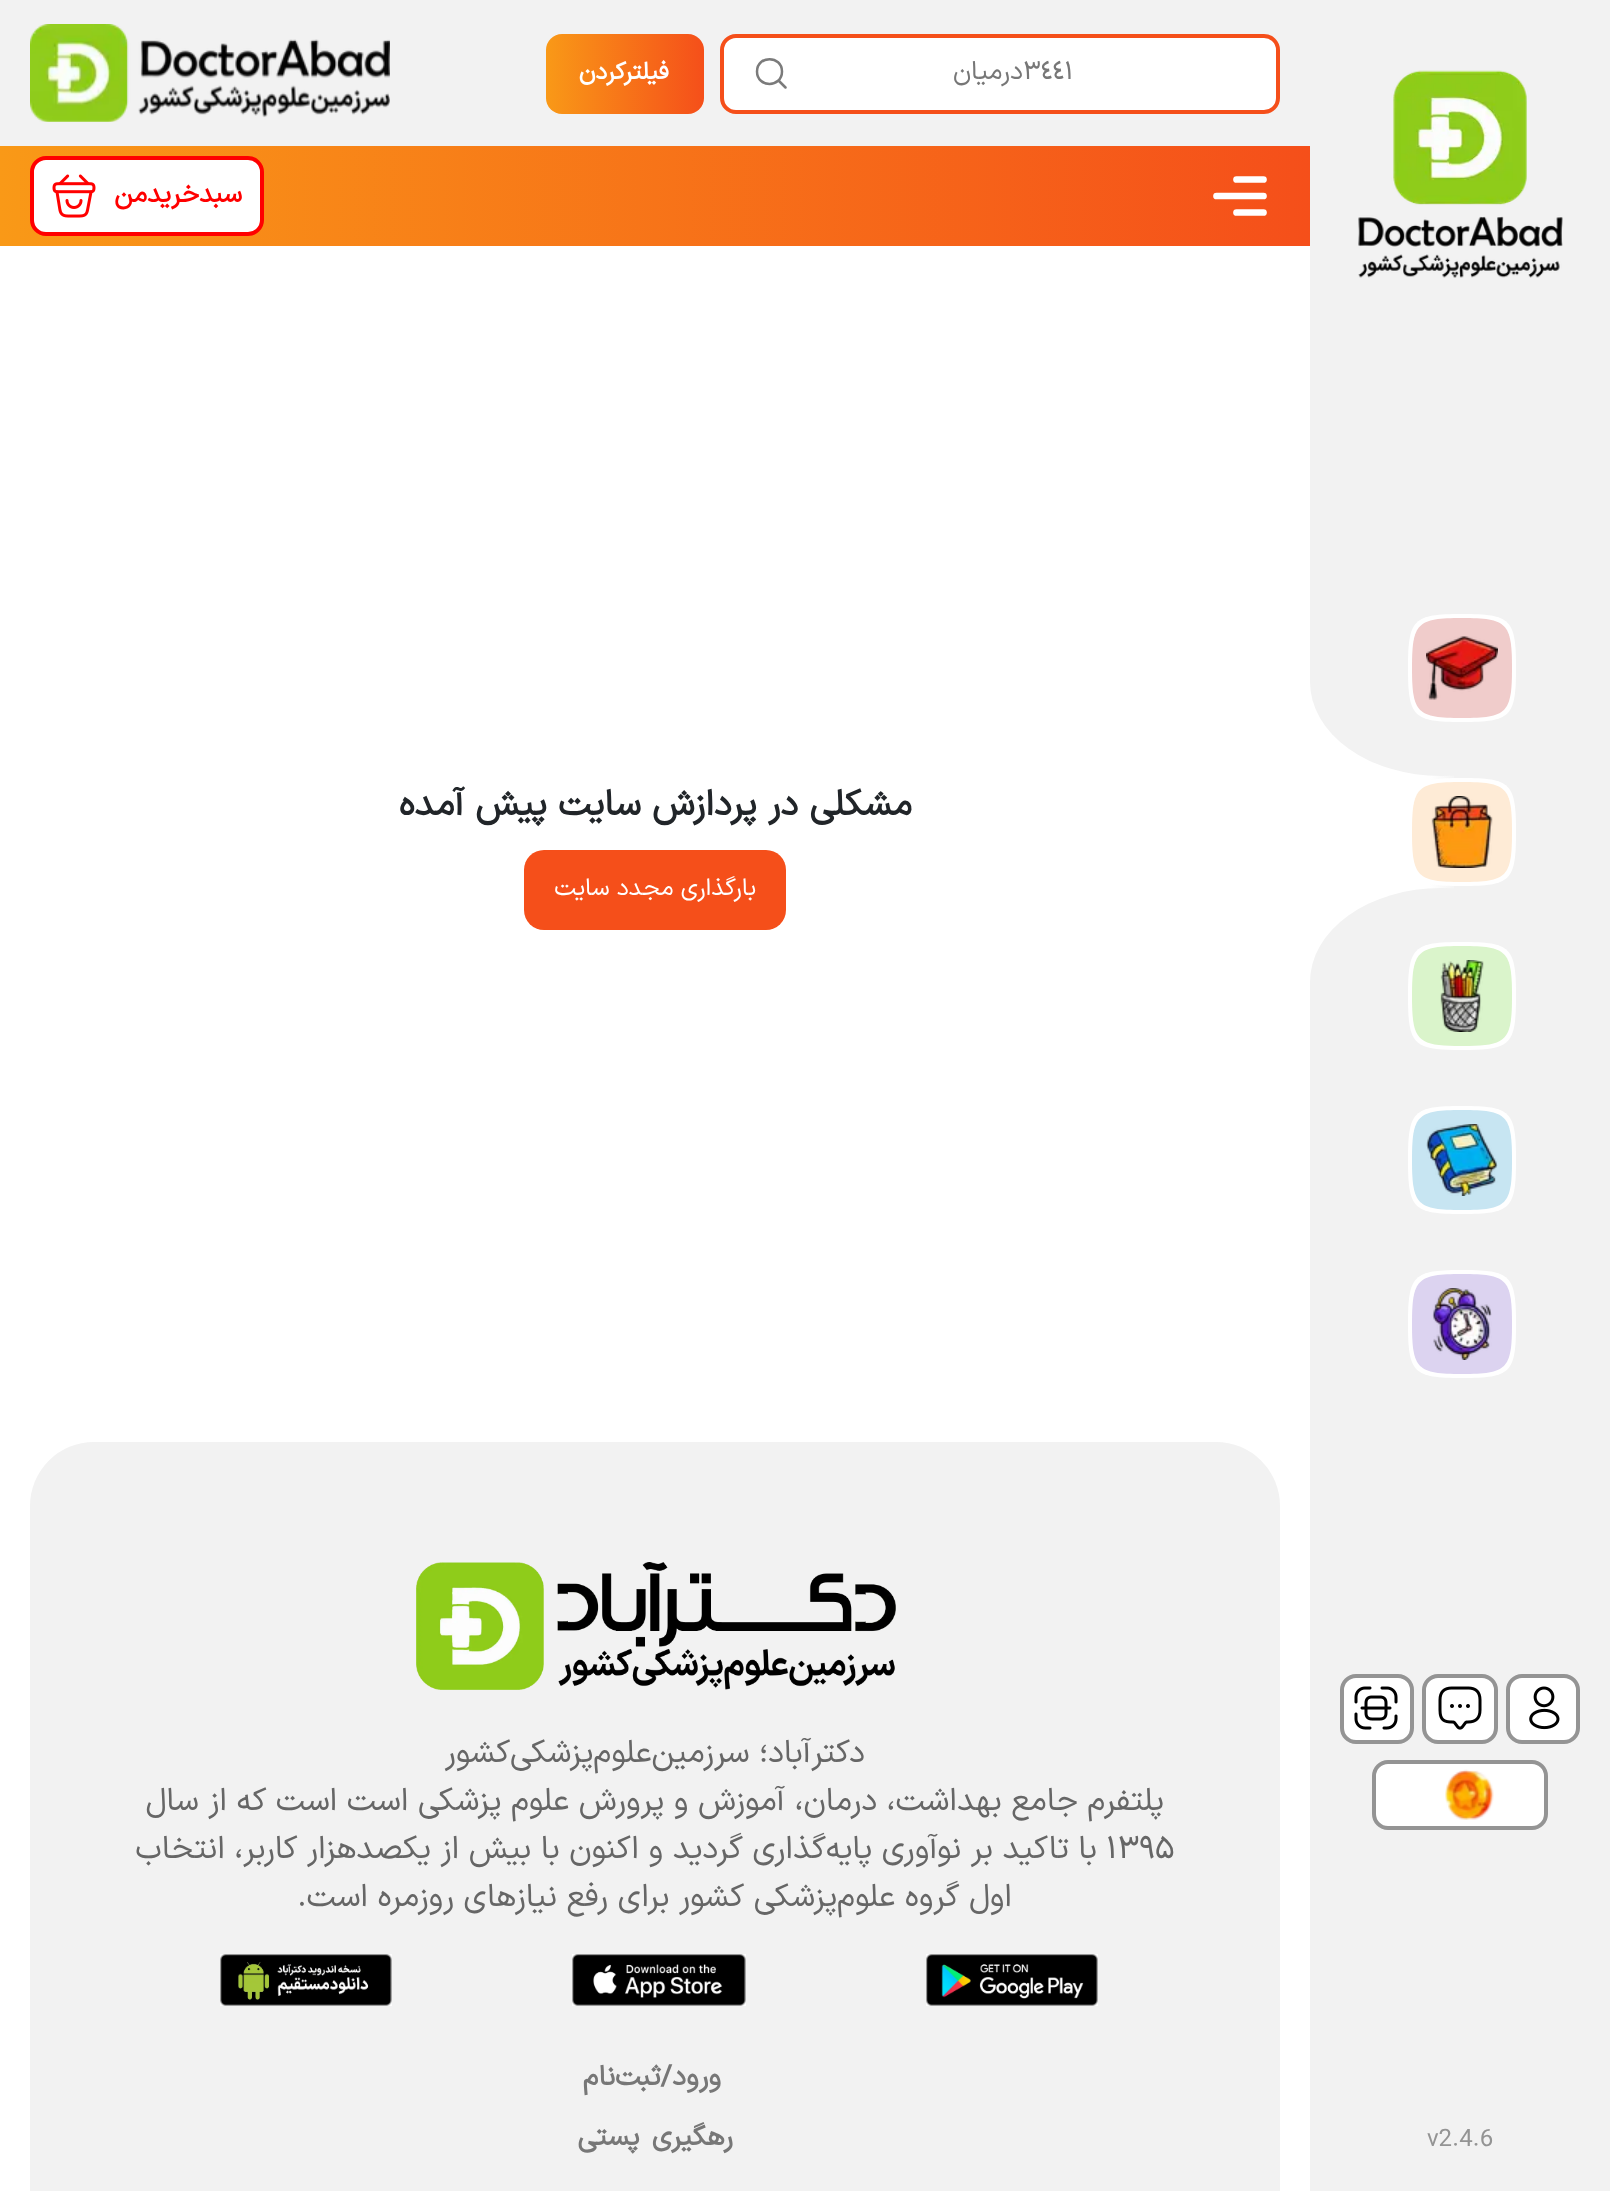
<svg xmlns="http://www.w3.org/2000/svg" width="1610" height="2191">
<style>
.a{font:26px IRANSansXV;fill:#777}
.b{font:26px IRANSansXV;direction:rtl;fill:#777}
.c{font:bold 24px IRANSansXV;direction:rtl;fill:#fff}
.d{font:bold 26px IRANSansXV;direction:rtl;fill:#f00}
.e{font:bold 36px IRANSansXV;direction:rtl;fill:#212529}
.f{font:24px IRANSansXV;direction:rtl;fill:#fff}
.g{font:24px IRANSansXV;fill:#949494}
.h{font:32px IRANSansXV;direction:rtl;fill:#666}
.i{font:32px IRANSansXV;fill:#666}
.j{font:bold 28px IRANSansXV;direction:rtl;fill:#777}
</style>
<defs>
<linearGradient id="g1" gradientUnits="userSpaceOnUse" x1="546" y1="74" x2="704" y2="74"><stop offset="0" stop-color="#f99917"/><stop offset="1" stop-color="#f54f1a"/></linearGradient>
<linearGradient id="g2" gradientUnits="userSpaceOnUse" x1="0" y1="196" x2="1310" y2="196"><stop offset="0" stop-color="#f99917"/><stop offset="1" stop-color="#f54f1a"/></linearGradient>
<linearGradient id="g3" gradientUnits="userSpaceOnUse" x1="1310" y1="832" x2="1460" y2="832"><stop offset="0.8" stop-color="#fff"/><stop offset="1" stop-color="#f2f2f2"/></linearGradient>
<clipPath id="clip1"><path d="M1310 682h150v300H1310z"/></clipPath>
</defs>
<rect width="100%" height="100%" fill="#fff"/>
<path fill="#f2f2f2" d="M0 0h1310v146H0z"/>
<rect fill="#fff" stroke="#f54f1a" stroke-width="4" x="722" y="36" width="556" height="76" rx="14"/>
<path fill="none" stroke="#7b7b7b" stroke-width="2.5" stroke-linecap="round" stroke-linejoin="round" d="M785.5 87.5l-7-7m3.5-9c0-16.5-25-16.5-25 0c0 16.5 25 16.5 25 0z"/>
<rect fill="url(#g1)" x="546" y="34" width="158" height="80" rx="16"/>
<image href="1.png" x="30" y="24" width="360" height="98"/>
<path fill="url(#g2)" d="M0 146h1310v100H0z"/>
<path fill="none" stroke="#fff" stroke-width="6.7" stroke-linecap="round" stroke-linejoin="round" d="M1236.5 212.5h27m-47-16.5h47m-27-16.5h27"/>
<rect fill="#fff" stroke="#f00" stroke-width="4" x="32" y="158" width="230" height="76" rx="14"/>
<image href="2.png" x="52" y="174" width="44" height="44"/>
<rect fill="#f54f1a" x="524" y="850" width="262" height="80" rx="20"/>
<path fill="#f2f2f2" d="M1310 0h300v2191H1310z"/>
<image href="3.png" x="1358" y="70" width="205" height="208"/>
<path fill="url(#g3)" d="M1310 682h144v300H1310z"/>
<g clip-path="url(#clip1)">
<ellipse fill="#f2f2f2" cx="1441" cy="682" rx="131" ry="94"/>
</g>
<path fill="#fff" d="M1408 668c0-49 5-54 54-54c49 0 54 5 54 54c0 49-5 54-54 54c-49 0-54-5-54-54"/>
<path fill="#f0cccb" d="M1412 668c0-45 5-50 50-50c45 0 50 5 50 50c0 45-5 50-50 50c-45 0-50-5-50-50"/>
<image href="4.png" x="1426" y="636" width="72" height="64"/>
<path fill="#fff" d="M1408 832c0-49 5-54 54-54c49 0 54 5 54 54c0 49-5 54-54 54c-49 0-54-5-54-54"/>
<path fill="#feebd6" d="M1412 832c0-45 5-50 50-50c45 0 50 5 50 50c0 45-5 50-50 50c-45 0-50-5-50-50"/>
<image href="5.png" x="1431" y="796" width="62" height="72"/>
<g clip-path="url(#clip1)">
<ellipse fill="#f2f2f2" cx="1441" cy="982" rx="131" ry="94"/>
</g>
<path fill="#fff" d="M1408 996c0-49 5-54 54-54c49 0 54 5 54 54c0 49-5 54-54 54c-49 0-54-5-54-54"/>
<path fill="#daf4cb" d="M1412 996c0-45 5-50 50-50c45 0 50 5 50 50c0 45-5 50-50 50c-45 0-50-5-50-50"/>
<image href="6.png" x="1440" y="960" width="44" height="72"/>
<path fill="#fff" d="M1408 1160c0-49 5-54 54-54c49 0 54 5 54 54c0 49-5 54-54 54c-49 0-54-5-54-54"/>
<path fill="#c7e5f2" d="M1412 1160c0-45 5-50 50-50c45 0 50 5 50 50c0 45-5 50-50 50c-45 0-50-5-50-50"/>
<image href="7.png" x="1426" y="1124" width="72" height="72"/>
<path fill="#fff" d="M1408 1324c0-49 5-54 54-54c49 0 54 5 54 54c0 49-5 54-54 54c-49 0-54-5-54-54"/>
<path fill="#dcd3f0" d="M1412 1324c0-45 5-50 50-50c45 0 50 5 50 50c0 45-5 50-50 50c-45 0-50-5-50-50"/>
<image href="8.png" x="1432" y="1288" width="60" height="72"/>
<rect fill="#fff" stroke="#949494" stroke-width="4" x="1508" y="1676" width="70" height="66" rx="14"/>
<image href="9.png" x="1529" y="1686" width="31" height="44"/>
<rect fill="#fff" stroke="#949494" stroke-width="4" x="1424" y="1676" width="72" height="66" rx="14"/>
<image href="10.png" x="1438" y="1686" width="44" height="44"/>
<rect fill="#fff" stroke="#949494" stroke-width="4" x="1342" y="1676" width="70" height="66" rx="14"/>
<image href="11.png" x="1354" y="1686" width="44" height="44"/>
<rect fill="#fff" stroke="#949494" stroke-width="4" x="1374" y="1762" width="172" height="66" rx="14"/>
<image href="12.png" x="1445" y="1769" width="49" height="51"/>
<rect fill="#f2f2f2" x="30" y="1442" width="1250" height="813" rx="64"/>
<image href="13.png" x="416" y="1562" width="480" height="128"/>
<image href="14.png" x="926" y="1954" width="172" height="52"/>
<image href="15.png" x="572" y="1954" width="174" height="52"/>
<image href="16.png" x="220" y="1954" width="172" height="52"/>
<text class="a" x="1023" y="79">٣٤٤١</text>
<text class="b" x="1023" y="79">درمیان</text>
<text class="c" x="669" y="79">فیلترکردن</text>
<text class="d" x="242" y="202">سبدخریدمن</text>
<text class="e" x="912" y="815" word-spacing="0.5">مشکلی در پردازش سایت پیش آمده</text>
<text class="f" x="756" y="895">بارگذاری مجدد سایت</text>
<text class="g" x="1427" y="2146">v2.4.6</text>
<text class="h" x="865" y="1762">دکترآباد؛ سرزمین‌علوم‌پزشکی‌کشور</text>
<text class="h" x="1164" y="1810">پلتفرم جامع بهداشت، درمان، آموزش و پرورش علوم پزشکی است است که از سال</text>
<text class="i" x="1106" y="1858">۱۳۹۵</text>
<text class="h" x="1097" y="1858">با تاکید بر نوآوری پایه‌گذاری گردید و اکنون با بیش از یکصدهزار کاربر، انتخاب</text>
<text class="h" x="1012" y="1906">اول گروه علوم‌پزشکی کشور برای رفع نیازهای روزمره است.</text>
<text class="j" x="721" y="2085">ورود/ثبت‌نام</text>
<text class="j" x="733" y="2145" word-spacing="4">رهگیری پستی</text>
</svg>
